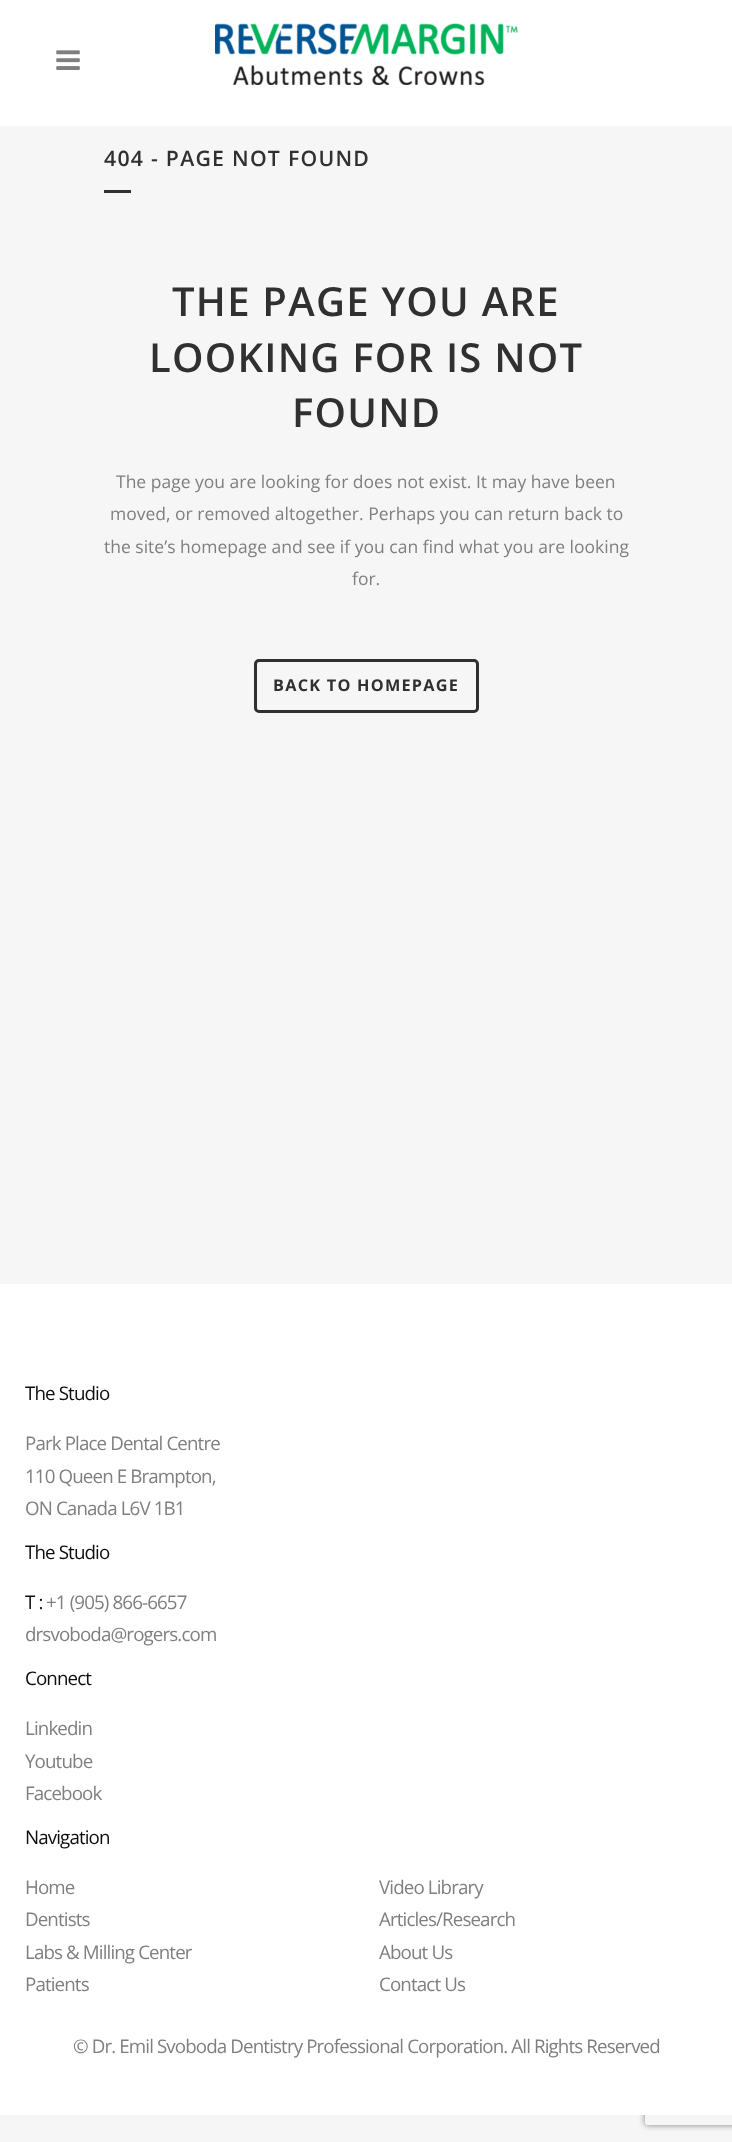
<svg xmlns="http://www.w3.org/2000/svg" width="732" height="2142">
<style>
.a{font:600 21.25px Open Sans;letter-spacing:1.25px;fill:#303030}
.b{font:600 40px Open Sans;letter-spacing:1.25px;fill:#303030}
.c{font:17.5px Open Sans;fill:#7f7f7f}
.d{font:bold 16.25px Open Sans;letter-spacing:1.25px;fill:#303030}
.e{font:18.75px Open Sans;letter-spacing:-0.88px;fill:#0d0d0d}
.f{font:18.75px Open Sans;letter-spacing:-0.88px;fill:#7f7f7f}
</style>
<defs>
<clipPath id="clip1"><path d="M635 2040h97v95h-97zm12.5 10h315c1.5 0 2.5 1 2.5 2.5v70c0 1.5-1 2.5-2.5 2.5h-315c-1.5 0-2.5-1-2.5-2.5v-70c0-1.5 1-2.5 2.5-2.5z" clip-rule="evenodd"/></clipPath>
</defs>
<rect width="100%" height="100%" fill="#f6f6f6"/>
<path fill="#fff" d="M0 0h732v126H0z"/>
<image href="1.png" x="56" y="50" width="24" height="20"/>
<image href="2.png" x="215" y="23" width="303" height="62"/>
<path fill="#303030" d="M104 190h27v3H104z"/>
<rect fill="none" stroke="#303030" stroke-width="3" x="255.5" y="660.5" width="222" height="51" rx="3.5"/>
<g clip-path="url(#clip1)">
<rect fill="#808080" filter="blur(3px)" x="645" y="2050" width="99" height="75" rx="2.5"/>
</g>
<path fill="#fff" d="M0 1284h732v831H0z"/>
<text class="a" x="104" y="166">404 - PAGE NOT FOUND</text>
<text class="b" x="172" y="316">THE PAGE YOU ARE</text>
<text class="b" x="149" y="372">LOOKING FOR IS NOT</text>
<text class="b" x="292" y="427">FOUND</text>
<text class="c" x="116" y="488">The page you are looking for does not exist. It may have been</text>
<text class="c" x="110" y="520">moved, or removed altogether. Perhaps you can return back to</text>
<text class="c" x="104" y="553">the site’s homepage and see if you can find what you are looking</text>
<text class="c" x="352" y="585">for.</text>
<text class="d" x="273" y="691">BACK TO HOMEPAGE</text>
<text class="e" x="25" y="1400">The Studio</text>
<text class="f" x="25" y="1450">Park Place Dental Centre</text>
<text class="f" x="25" y="1483">110 Queen E Brampton,</text>
<text class="f" x="25" y="1515">ON Canada L6V 1B1</text>
<text class="e" x="25" y="1559">The Studio</text>
<text class="e" x="25" y="1609">T :</text>
<text class="f" x="46" y="1609">+1 (905) 866-6657</text>
<text class="f" x="25" y="1641">drsvoboda@rogers.com</text>
<text class="e" x="25" y="1685">Connect</text>
<text class="f" x="25" y="1735">Linkedin</text>
<text class="f" x="25" y="1768">Youtube</text>
<text class="f" x="25" y="1800">Facebook</text>
<text class="e" x="25" y="1844">Navigation</text>
<text class="f" x="25" y="1894">Home</text>
<text class="f" x="25" y="1926">Dentists</text>
<text class="f" x="25" y="1959">Labs &amp; Milling Center</text>
<text class="f" x="25" y="1991">Patients</text>
<text class="f" x="379" y="1894">Video Library</text>
<text class="f" x="379" y="1926">Articles/Research</text>
<text class="f" x="379" y="1959">About Us</text>
<text class="f" x="379" y="1991">Contact Us</text>
<text class="f" x="73" y="2053">© Dr. Emil Svoboda Dentistry Professional Corporation. All Rights Reserved</text>
</svg>
